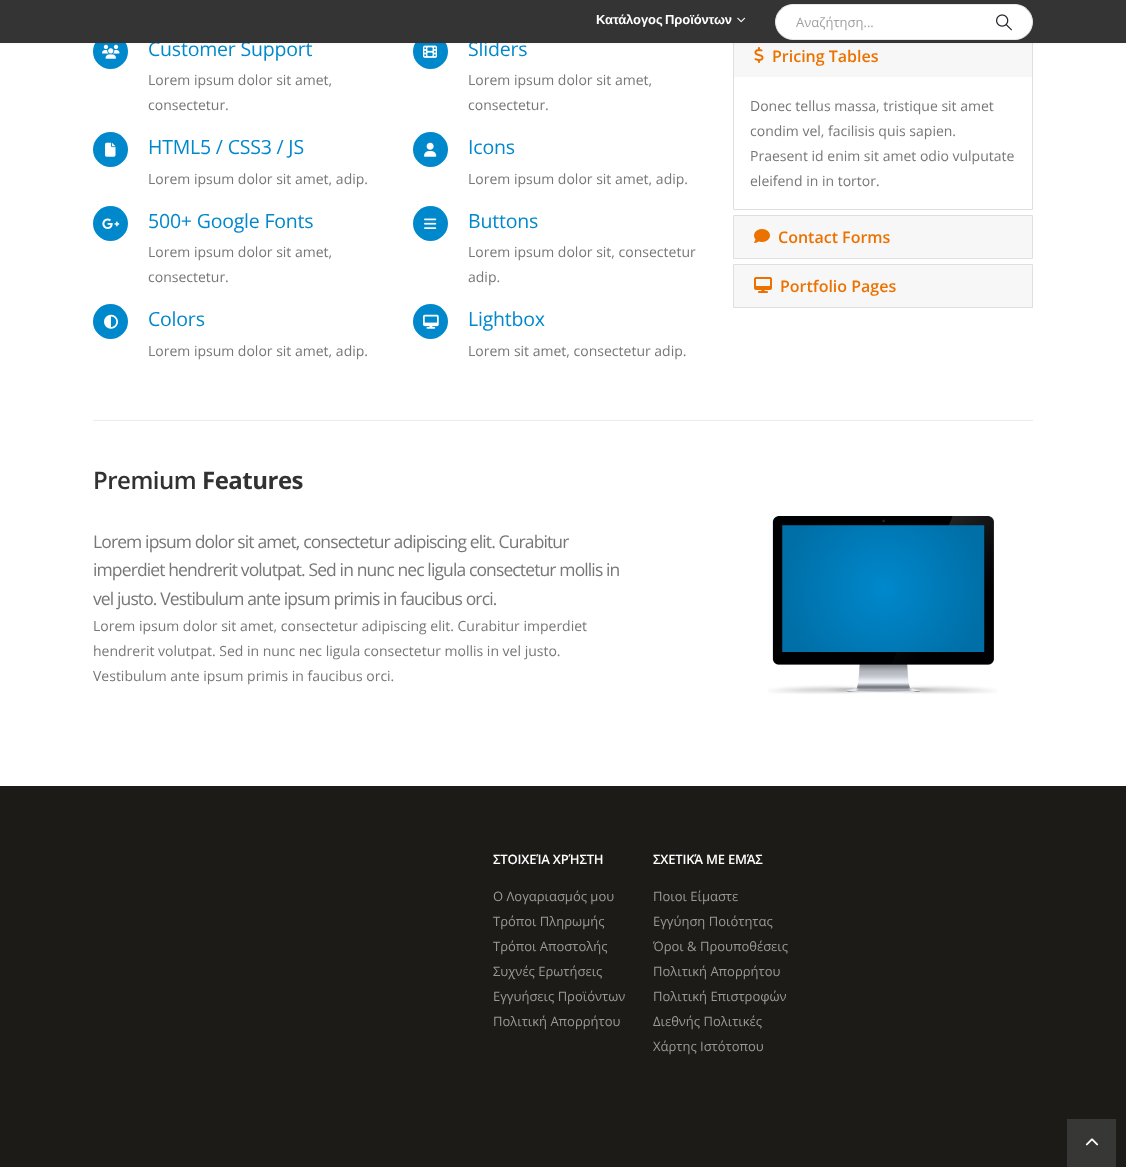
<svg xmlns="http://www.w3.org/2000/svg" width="1126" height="1167">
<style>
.a{font:19.5px Open Sans;letter-spacing:-0.2px;fill:#08c}
.b{font:14px Open Sans;fill:#777}
.c{font:13px Open Sans;fill:#a0a0a0}
.d{font:bold 13px Liberation Sans;letter-spacing:-0.1px;fill:#fff}
.e{font:600 16px Open Sans;fill:#ec7200}
.f{font:600 24px Open Sans;letter-spacing:-0.5px;fill:#323232}
.g{font:bold 24px Open Sans;letter-spacing:-0.5px;fill:#323232}
.h{font:17.5px Open Sans;letter-spacing:-0.88px;fill:#777}
.i{font:600 13px Open Sans;letter-spacing:-0.2px;fill:#fff}
.j{font:13px Open Sans;fill:#999}
</style>
<rect width="100%" height="100%" fill="#fff"/>
<circle fill="#08c" cx="110.5" cy="51.5" r="17.5"/>
<image href="3.png" x="102" y="44" width="18" height="15"/>
<circle fill="#08c" cx="430.5" cy="51.5" r="17.5"/>
<image href="4.png" x="423" y="45" width="14" height="13"/>
<path fill="none" stroke="#dfdfdf" d="M733.5 34.5h299v175H733.5z"/>
<path fill="#f7f7f7" d="M734 43h298v34H734z"/>
<image href="11.png" x="754" y="47" width="10" height="16"/>
<path fill="#0000000f" filter="blur(1.5px)" d="M0 0h1126v43H0z"/>
<circle fill="#08c" cx="110.5" cy="149.5" r="17.5"/>
<image href="5.png" x="105" y="142" width="11" height="15"/>
<circle fill="#08c" cx="430.5" cy="149.5" r="17.5"/>
<image href="6.png" x="424" y="142" width="13" height="15"/>
<circle fill="#08c" cx="110.5" cy="223.5" r="17.5"/>
<image href="7.png" x="102" y="218" width="18" height="11"/>
<circle fill="#08c" cx="430.5" cy="223.5" r="17.5"/>
<image href="8.png" x="424" y="218" width="13" height="11"/>
<circle fill="#08c" cx="110.5" cy="321.5" r="17.5"/>
<image href="9.png" x="104" y="314" width="14" height="15"/>
<circle fill="#08c" cx="430.5" cy="321.5" r="17.5"/>
<image href="10.png" x="423" y="314" width="16" height="15"/>
<path fill="none" stroke="#dfdfdf" d="M733.5 215.5h299v43H733.5z"/>
<path fill="#f7f7f7" d="M734 216h298v42H734z"/>
<image href="12.png" x="754" y="229" width="16" height="14"/>
<path fill="none" stroke="#dfdfdf" d="M733.5 264.5h299v43H733.5z"/>
<path fill="#f7f7f7" d="M734 265h298v42H734z"/>
<image href="13.png" x="754" y="277" width="18" height="16"/>
<path fill="#ebebeb" d="M93 420h940v1H93z"/>
<image href="14.png" x="768" y="516" width="229" height="178"/>
<path fill="#1c1b17" d="M0 786h1126v381H0z"/>
<path fill="#373736" d="M1067 1119h49v48H1067z"/>
<image href="15.png" x="1085" y="1138" width="14" height="8"/>
<text class="a" x="148" y="56">Customer Support</text>
<text class="b" x="148" y="85">Lorem ipsum dolor sit amet,</text>
<text class="b" x="148" y="110">consectetur.</text>
<text class="a" x="468" y="56">Sliders</text>
<path fill="#343434" d="M0 0h1126v43H0z"/>
<rect fill="#fff" stroke="#e7e7e7" x="775.5" y="4.5" width="257" height="35" rx="17.5"/>
<image href="2.png" x="996" y="14" width="16" height="17"/>
<text class="c" x="796" y="27">Αναζήτηση...</text>
<image href="1.png" x="737" y="17" width="9" height="6"/>
<text class="d" x="596" y="24" word-spacing="-1">Κατάλογος Προϊόντων</text>
<text class="b" x="468" y="85">Lorem ipsum dolor sit amet,</text>
<text class="b" x="468" y="110">consectetur.</text>
<text class="a" x="148" y="154">HTML5 / CSS3 / JS</text>
<text class="b" x="148" y="184">Lorem ipsum dolor sit amet, adip.</text>
<text class="a" x="468" y="154">Icons</text>
<text class="b" x="468" y="184">Lorem ipsum dolor sit amet, adip.</text>
<text class="a" x="148" y="228">500+ Google Fonts</text>
<text class="b" x="148" y="257">Lorem ipsum dolor sit amet,</text>
<text class="b" x="148" y="282">consectetur.</text>
<text class="a" x="468" y="228">Buttons</text>
<text class="b" x="468" y="257">Lorem ipsum dolor sit, consectetur</text>
<text class="b" x="468" y="282">adip.</text>
<text class="a" x="148" y="326">Colors</text>
<text class="b" x="148" y="356">Lorem ipsum dolor sit amet, adip.</text>
<text class="a" x="468" y="326">Lightbox</text>
<text class="b" x="468" y="356">Lorem sit amet, consectetur adip.</text>
<text class="e" x="772" y="62">Pricing Tables</text>
<text class="b" x="750" y="111">Donec tellus massa, tristique sit amet</text>
<text class="b" x="750" y="136">condim vel, facilisis quis sapien.</text>
<text class="b" x="750" y="161">Praesent id enim sit amet odio vulputate</text>
<text class="b" x="750" y="186">eleifend in in tortor.</text>
<text class="e" x="778" y="243">Contact Forms</text>
<text class="e" x="780" y="292">Portfolio Pages</text>
<text class="f" x="93" y="489">Premium</text>
<text class="g" x="202" y="489">Features</text>
<text class="h" x="93" y="548">Lorem ipsum dolor sit amet, consectetur adipiscing elit. Curabitur</text>
<text class="h" x="93" y="576">imperdiet hendrerit volutpat. Sed in nunc nec ligula consectetur mollis in</text>
<text class="h" x="93" y="605">vel justo. Vestibulum ante ipsum primis in faucibus orci.</text>
<text class="b" x="93" y="631">Lorem ipsum dolor sit amet, consectetur adipiscing elit. Curabitur imperdiet</text>
<text class="b" x="93" y="656">hendrerit volutpat. Sed in nunc nec ligula consectetur mollis in vel justo.</text>
<text class="b" x="93" y="681">Vestibulum ante ipsum primis in faucibus orci.</text>
<text class="i" x="493" y="864">ΣΤΟΙΧΕΊΑ ΧΡΉΣΤΗ</text>
<text class="j" x="493" y="901">Ο Λογαριασμός μου</text>
<text class="j" x="493" y="926">Τρόποι Πληρωμής</text>
<text class="j" x="493" y="951">Τρόποι Αποστολής</text>
<text class="j" x="493" y="976">Συχνές Ερωτήσεις</text>
<text class="j" x="493" y="1001">Εγγυήσεις Προϊόντων</text>
<text class="j" x="493" y="1026">Πολιτική Απορρήτου</text>
<text class="i" x="653" y="864">ΣΧΕΤΙΚΆ ΜΕ ΕΜΆΣ</text>
<text class="j" x="653" y="901">Ποιοι Είμαστε</text>
<text class="j" x="653" y="926">Εγγύηση Ποιότητας</text>
<text class="j" x="653" y="951">Όροι &amp; Προυποθέσεις</text>
<text class="j" x="653" y="976">Πολιτική Απορρήτου</text>
<text class="j" x="653" y="1001">Πολιτική Επιστροφών</text>
<text class="j" x="653" y="1026">Διεθνής Πολιτικές</text>
<text class="j" x="653" y="1051">Χάρτης Ιστότοπου</text>
</svg>
